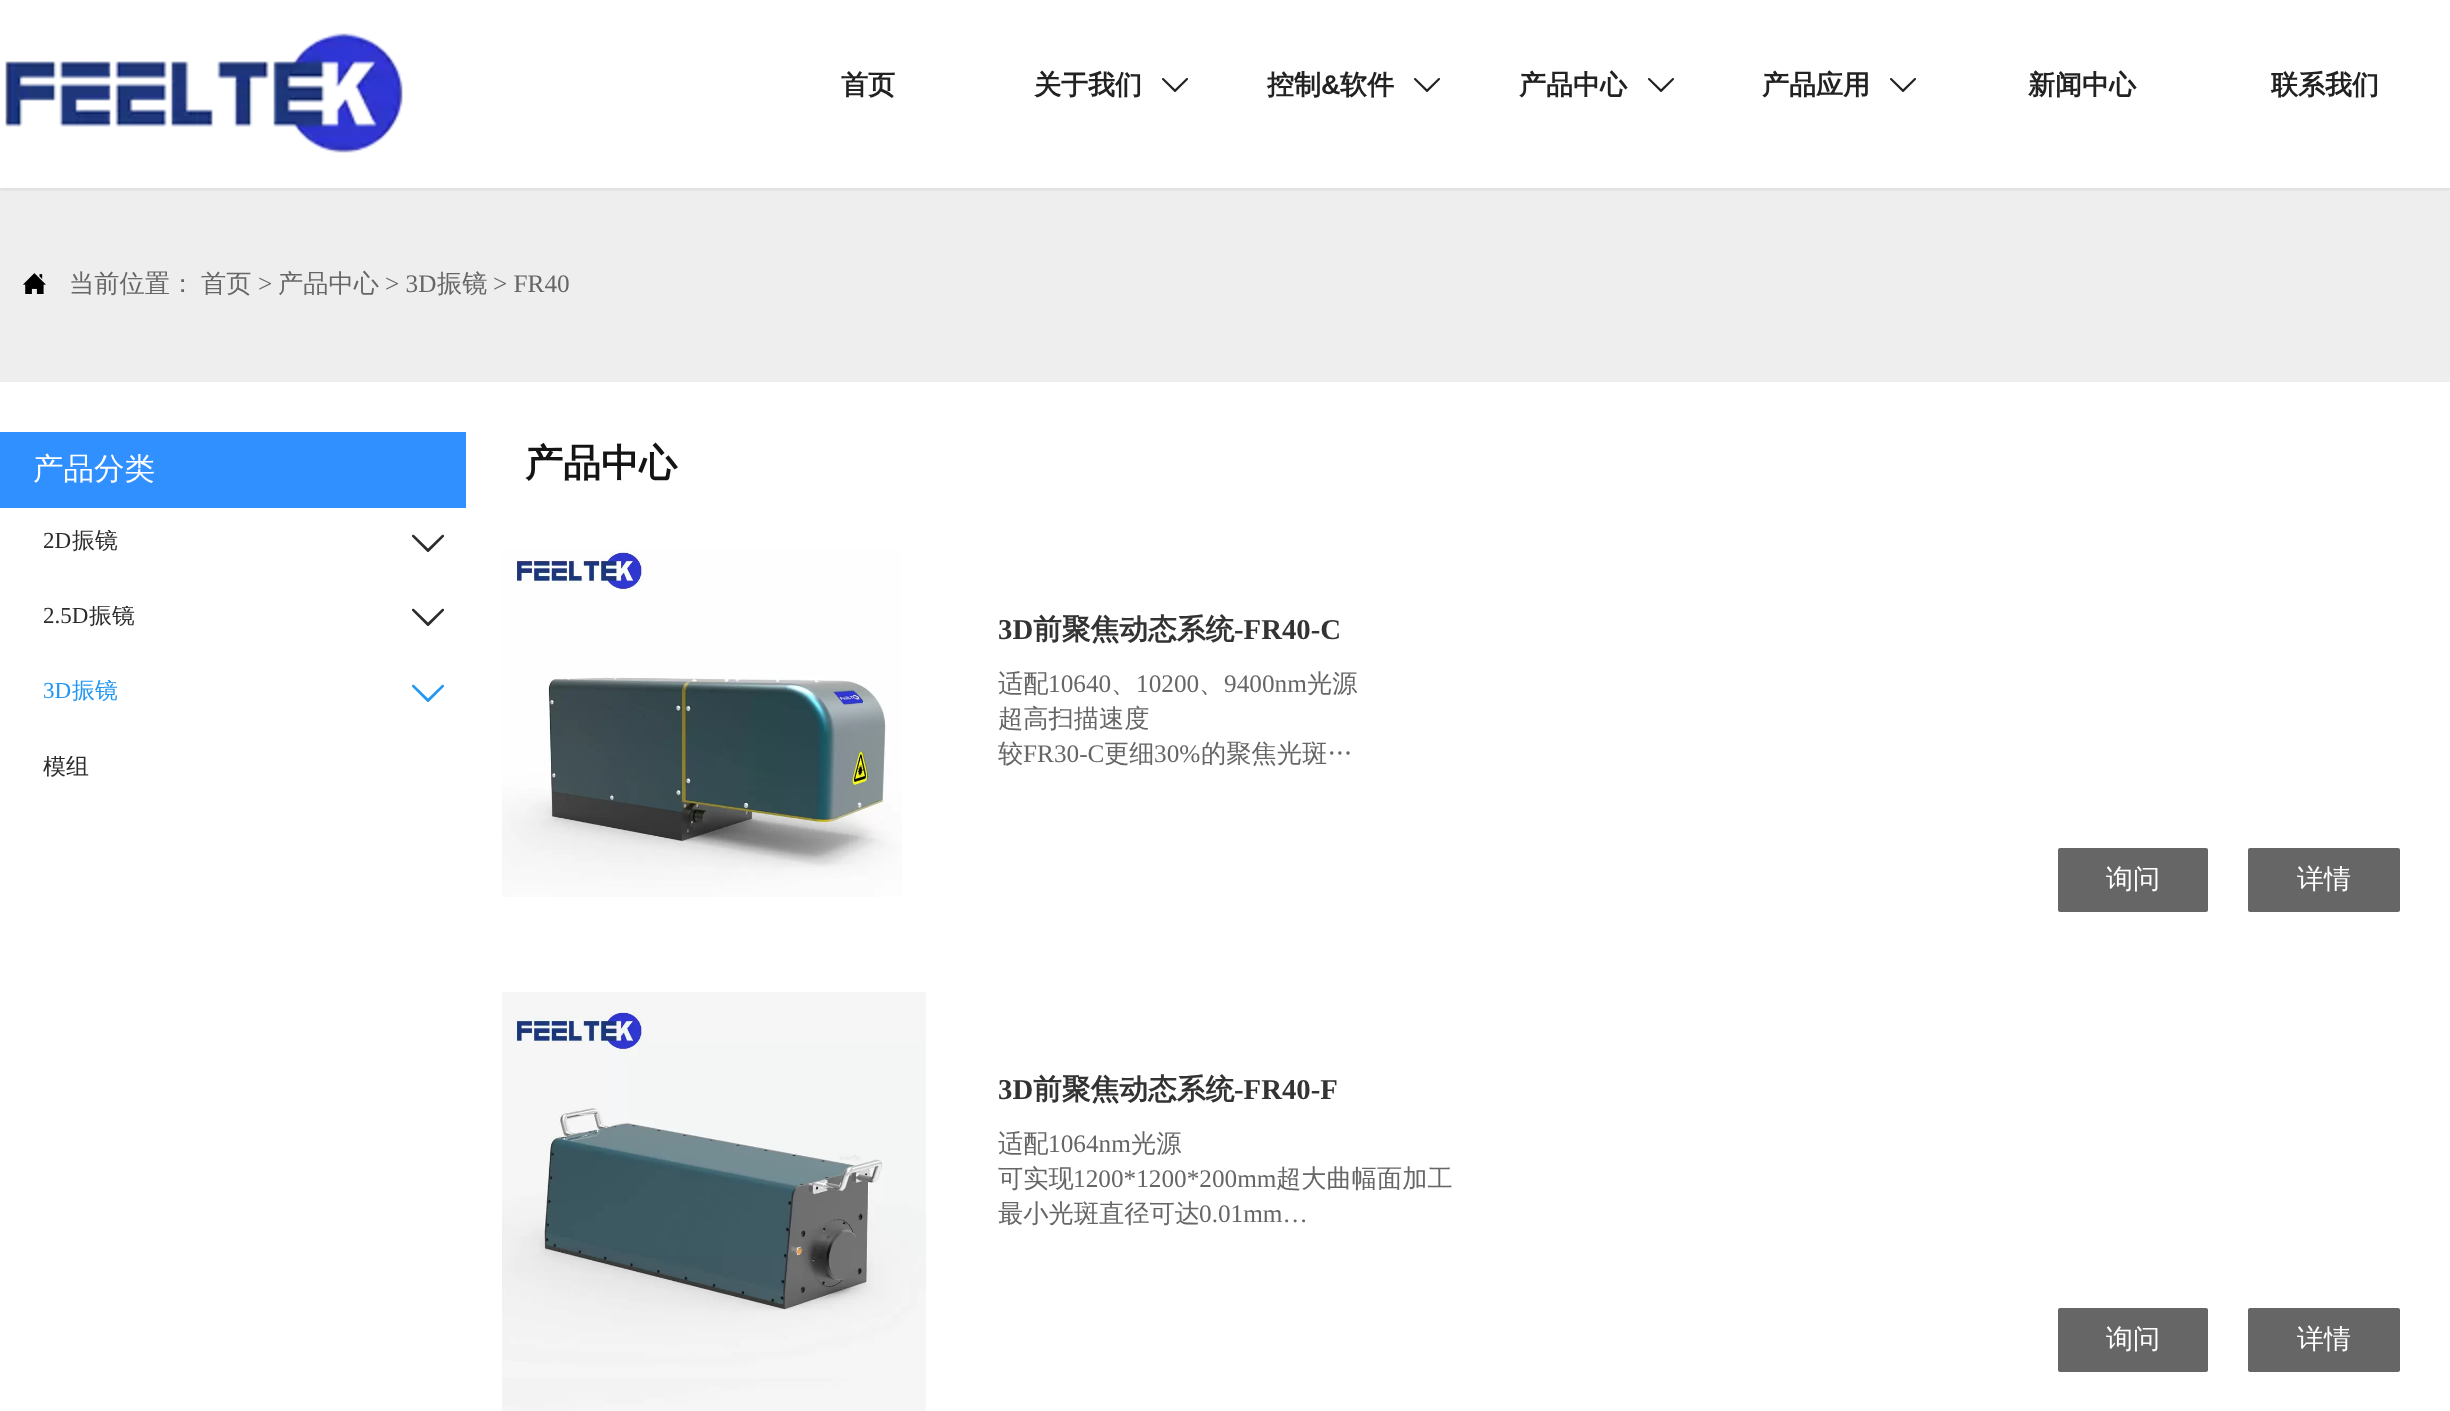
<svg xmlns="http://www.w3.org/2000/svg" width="2450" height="1411">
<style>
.a{font:bold 27px WenQuanYi Zen Hei;fill:#222}
.b{font:bold 27px Liberation Sans;fill:#222}
.c{font:500 25.25px WenQuanYi Zen Hei;fill:#666}
.d{font:25.25px Liberation Serif;fill:#666}
.e{font:500 30.5px WenQuanYi Zen Hei;fill:#fff}
.f{font:23px Liberation Serif;fill:#2c2c2c}
.g{font:500 23px WenQuanYi Zen Hei;fill:#2c2c2c}
.h{font:23px Liberation Serif;fill:#2196f3}
.i{font:500 23px WenQuanYi Zen Hei;fill:#2196f3}
.j{font:bold 38px WenQuanYi Zen Hei;fill:#141414}
.k{font:bold 28.75px Liberation Serif;fill:#333}
.l{font:bold 28.75px WenQuanYi Zen Hei;fill:#333}
.m{font:500 27px WenQuanYi Zen Hei;fill:#fff}
</style>
<defs>
<clipPath id="clip1"><path d="M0 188h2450v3H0z"/></clipPath>
<clipPath id="clip2"><path d="M24 530h382v24H24z"/></clipPath>
<clipPath id="clip3"><path d="M24 606h382v22H24z"/></clipPath>
<clipPath id="clip4"><path d="M24 680h382v24H24z"/></clipPath>
<clipPath id="clip5"><path d="M24 756h442v24H24z"/></clipPath>
</defs>
<rect width="100%" height="100%" fill="#fff"/>
<path fill="#eee" d="M0 188h2450v194H0z"/>
<g clip-path="url(#clip1)">
<path fill="#00000036" filter="blur(4px)" d="M-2 -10h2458v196H-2z"/>
</g>
<image href="1.png" x="5" y="33" width="398" height="120"/>
<image href="2.png" x="1162" y="78" width="26" height="14"/>
<image href="2.png" x="1414" y="78" width="26" height="14"/>
<image href="3.png" x="1648" y="78" width="26" height="14"/>
<image href="2.png" x="1890" y="78" width="26" height="14"/>
<image href="4.png" x="23" y="273" width="23" height="21"/>
<path fill="#3190ff" d="M0 432h466v76H0z"/>
<image href="5.png" x="412" y="534" width="32" height="18"/>
<image href="5.png" x="412" y="608" width="32" height="18"/>
<image href="6.png" x="412" y="684" width="32" height="18"/>
<image href="7.png" x="502" y="548" width="400" height="349"/>
<rect fill="#666" x="2058" y="848" width="150" height="64" rx="2"/>
<rect fill="#666" x="2248" y="848" width="152" height="64" rx="2"/>
<image href="8.png" x="502" y="992" width="424" height="419"/>
<rect fill="#666" x="2058" y="1308" width="150" height="64" rx="2"/>
<rect fill="#666" x="2248" y="1308" width="152" height="64" rx="2"/>
<text class="a" x="841" y="94">首页</text>
<text class="a" x="1034" y="94">关于我们</text>
<text class="a" x="1267" y="94">控制</text>
<text class="b" x="1321" y="94">&amp;</text>
<text class="a" x="1340" y="94">软件</text>
<text class="a" x="1519" y="94">产品中心</text>
<text class="a" x="1762" y="94">产品应用</text>
<text class="a" x="2028" y="94">新闻中心</text>
<text class="a" x="2271" y="94">联系我们</text>
<text class="c" x="69" y="292">当前位置：</text>
<text class="c" x="201" y="292">首页</text>
<text class="d" x="258" y="292">&gt;</text>
<text class="c" x="278" y="292">产品中心</text>
<text class="d" x="385" y="292">&gt; 3D</text>
<text class="c" x="437" y="292">振镜</text>
<text class="d" x="493" y="292">&gt; FR40</text>
<text class="e" x="33" y="479">产品分类</text>
<text class="f" x="43" y="548">2D</text>
<g clip-path="url(#clip2)">
<text class="g" x="72" y="548">振镜</text>
</g>
<text class="f" x="43" y="623">2.5D</text>
<g clip-path="url(#clip3)">
<text class="g" x="89" y="623">振镜</text>
</g>
<text class="h" x="43" y="698">3D</text>
<g clip-path="url(#clip4)">
<text class="i" x="72" y="698">振镜</text>
</g>
<g clip-path="url(#clip5)">
<text class="g" x="43" y="774">模组</text>
</g>
<text class="j" x="525" y="476">产品中心</text>
<text class="k" x="998" y="639">3D</text>
<text class="l" x="1033" y="639">前聚焦动态系统</text>
<text class="k" x="1234" y="639">-FR40-C</text>
<text class="c" x="998" y="692">适配</text>
<text class="d" x="1048" y="692">10640</text>
<text class="c" x="1111" y="692">、</text>
<text class="d" x="1136" y="692">10200</text>
<text class="c" x="1199" y="692">、</text>
<text class="d" x="1224" y="692">9400nm</text>
<text class="c" x="1307" y="692">光源</text>
<text class="c" x="998" y="727">超高扫描速度</text>
<text class="c" x="998" y="762">较</text>
<text class="d" x="1023" y="762">FR30-C</text>
<text class="c" x="1104" y="762">更细</text>
<text class="d" x="1154" y="762">30%</text>
<text class="c" x="1201" y="762">的聚焦光斑…</text>
<text class="m" x="2106" y="888">询问</text>
<text class="m" x="2297" y="888">详情</text>
<text class="k" x="998" y="1099">3D</text>
<text class="l" x="1033" y="1099">前聚焦动态系统</text>
<text class="k" x="1234" y="1099">-FR40-F</text>
<text class="c" x="998" y="1152">适配</text>
<text class="d" x="1048" y="1152">1064nm</text>
<text class="c" x="1131" y="1152">光源</text>
<text class="c" x="998" y="1187">可实现</text>
<text class="d" x="1073" y="1187">1200*1200*200mm</text>
<text class="c" x="1276" y="1187">超大曲幅面加工</text>
<text class="c" x="998" y="1222">最小光斑直径可达</text>
<text class="d" x="1199" y="1222">0.01mm…</text>
<text class="m" x="2106" y="1348">询问</text>
<text class="m" x="2297" y="1348">详情</text>
</svg>
